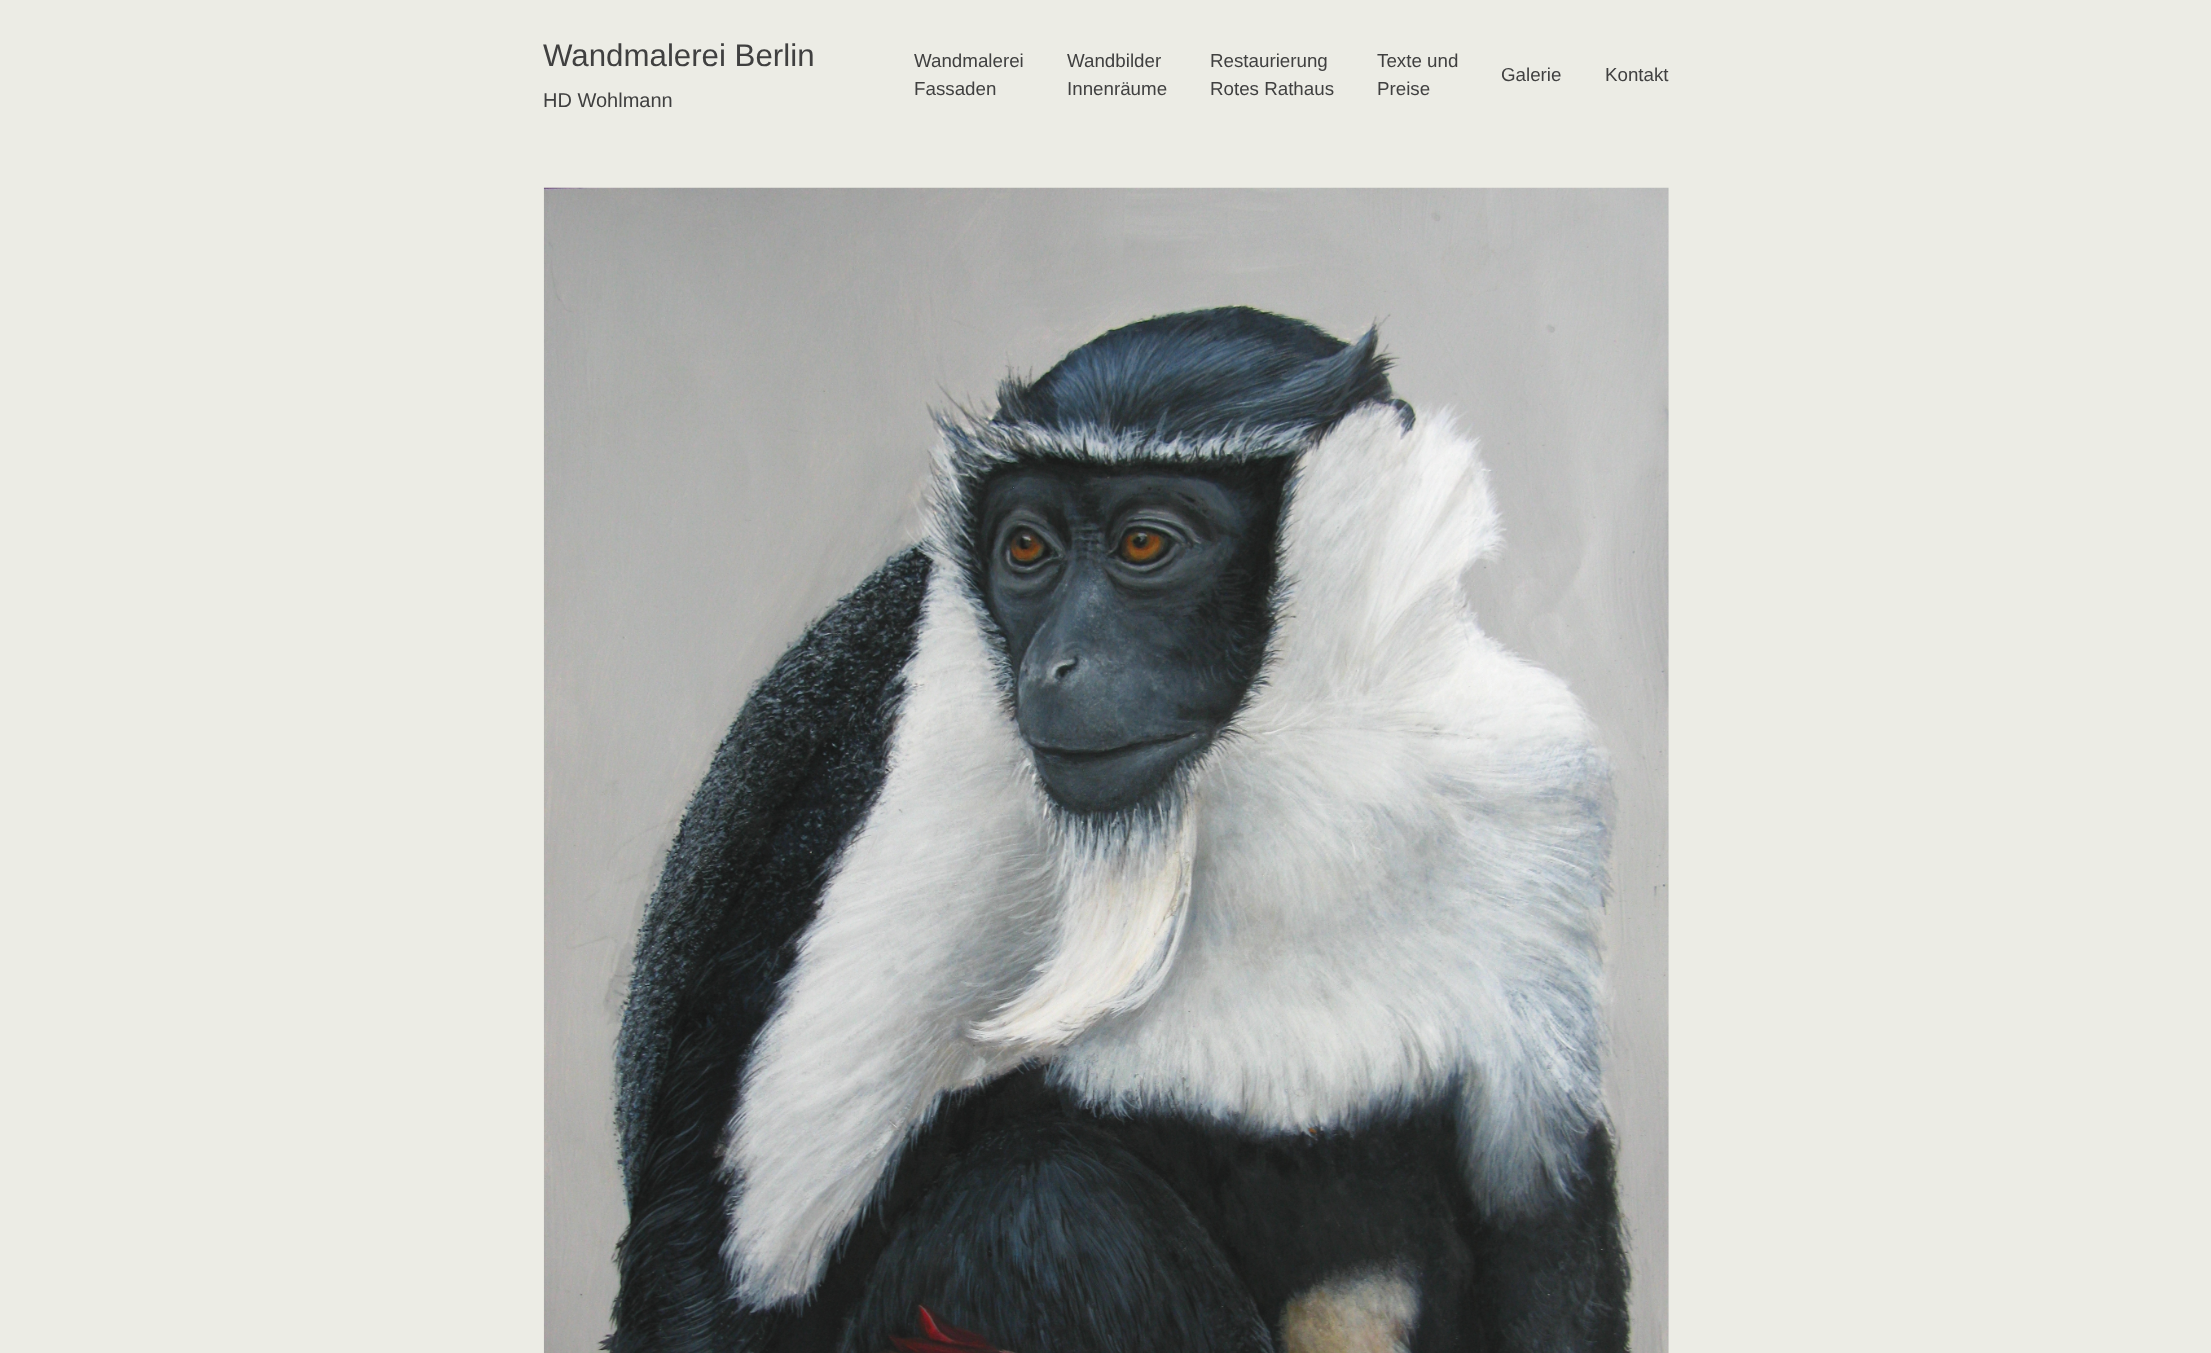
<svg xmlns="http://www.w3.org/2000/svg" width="2211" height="1353">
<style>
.a{font:31.25px Liberation Sans;fill:#404040}
.b{font:20px Liberation Sans;fill:#404040}
.c{font:18.75px Liberation Sans;fill:#404040}
</style>
<rect width="100%" height="100%" fill="#ecece5"/>
<image href="1.png" x="543" y="187" width="1126" height="1166"/>
<text class="a" x="543" y="66">Wandmalerei Berlin</text>
<text class="b" x="543" y="107">HD Wohlmann</text>
<text class="c" x="914" y="67">Wandmalerei</text>
<text class="c" x="914" y="95">Fassaden</text>
<text class="c" x="1067" y="67">Wandbilder</text>
<text class="c" x="1067" y="95">Innenräume</text>
<text class="c" x="1210" y="67">Restaurierung</text>
<text class="c" x="1210" y="95">Rotes Rathaus</text>
<text class="c" x="1377" y="67">Texte und</text>
<text class="c" x="1377" y="95">Preise</text>
<text class="c" x="1501" y="81">Galerie</text>
<text class="c" x="1605" y="81">Kontakt</text>
</svg>
